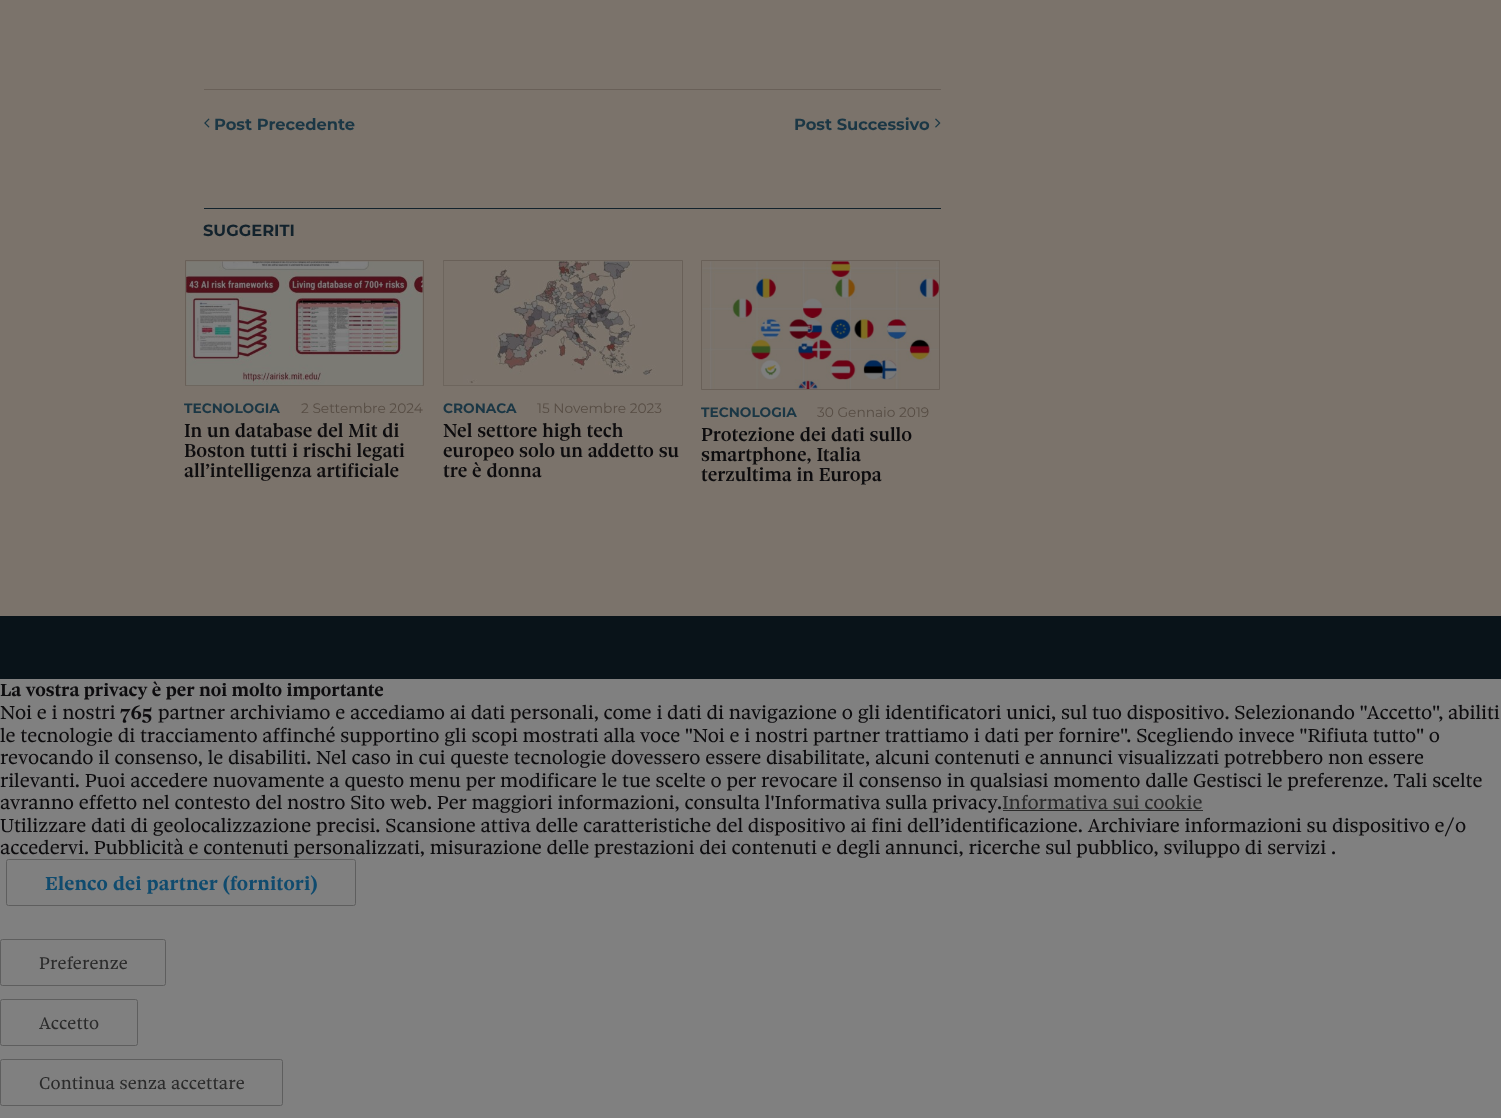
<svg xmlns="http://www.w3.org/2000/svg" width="1501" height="1118">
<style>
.a{font:bold 16.25px Montserrat;fill:#1b3745}
.b{font:bold 16.25px Montserrat;fill:#12222c}
.c{font:bold 13.75px Montserrat;fill:#1b3745}
.d{font:13.75px Montserrat;fill:#574d44}
.e{font:500 20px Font;fill:#0d0c0e}
.f{font:bold 18.75px Font;fill:#0d0c0e}
.g{font:20px Font;fill:#0d0c0e}
.h{font:bold 20px Font;fill:#0d0c0e}
.i{font:20px Font;fill:#2b2b2b}
.j{font:bold 20px Font;letter-spacing:0.2px;fill:#104b6e}
.k{font:18px Font;letter-spacing:0.2px;fill:#2b2b2b}
</style>
<rect width="100%" height="100%" fill="#808080"/>
<path fill="#7b736b" d="M0 0h1501v616H0z"/>
<path fill="#696058" d="M204 89h737v1H204z"/>
<image href="1.png" x="204" y="118" width="6" height="10"/>
<image href="2.png" x="935" y="118" width="6" height="10"/>
<path fill="#12222c" d="M204 208h737v1H204z"/>
<path fill="none" stroke="#696058" d="M185.5 260.5h238v125H185.5z"/>
<image href="3.png" x="186" y="261" width="237" height="125"/>
<path fill="none" stroke="#696058" d="M443.5 260.5h239v125H443.5z"/>
<image href="4.png" x="443" y="261" width="238" height="125"/>
<path fill="none" stroke="#696058" d="M701.5 260.5h238v129H701.5z"/>
<image href="5.png" x="702" y="261" width="237" height="128"/>
<path fill="#091319" d="M0 616h1501v63H0z"/>
<path fill="#2b2b2b" d="M1003 810h200v1H1003z"/>
<rect fill="none" stroke="#5e5e5e" x="6.5" y="859.5" width="349" height="46" rx="2"/>
<rect fill="none" stroke="#5e5e5e" x="0.5" y="939.5" width="165" height="46" rx="2"/>
<rect fill="none" stroke="#5e5e5e" x="0.5" y="999.5" width="137" height="46" rx="2"/>
<rect fill="none" stroke="#5e5e5e" x="0.5" y="1059.5" width="282" height="46" rx="2"/>
<text class="a" x="214" y="130">Post Precedente</text>
<text class="a" x="794" y="130">Post Successivo</text>
<text class="b" x="203" y="236">SUGGERITI</text>
<text class="c" x="184" y="413">TECNOLOGIA</text>
<text class="d" x="301" y="413">2 Settembre 2024</text>
<text class="e" x="184" y="437">In un database del Mit di</text>
<text class="e" x="184" y="457">Boston tutti i rischi legati</text>
<text class="e" x="184" y="477">all’intelligenza artificiale</text>
<text class="c" x="443" y="413">CRONACA</text>
<text class="d" x="537" y="413">15 Novembre 2023</text>
<text class="e" x="443" y="437">Nel settore high tech</text>
<text class="e" x="443" y="457">europeo solo un addetto su</text>
<text class="e" x="443" y="477">tre è donna</text>
<text class="c" x="701" y="417">TECNOLOGIA</text>
<text class="d" x="817" y="417">30 Gennaio 2019</text>
<text class="e" x="701" y="441">Protezione dei dati sullo</text>
<text class="e" x="701" y="461">smartphone, Italia</text>
<text class="e" x="701" y="481">terzultima in Europa</text>
<text class="f" x="0" y="696">La vostra privacy è per noi molto importante</text>
<text class="g" x="0" y="719">Noi e i nostri</text>
<text class="h" x="120" y="719">765</text>
<text class="g" x="158" y="719">partner archiviamo e accediamo ai dati personali, come i dati di navigazione o gli identificatori unici, sul tuo dispositivo. Selezionando "Accetto", abiliti</text>
<text class="g" x="0" y="742">le tecnologie di tracciamento affinché supportino gli scopi mostrati alla voce "Noi e i nostri partner trattiamo i dati per fornire". Scegliendo invece "Rifiuta tutto" o</text>
<text class="g" x="0" y="764">revocando il consenso, le disabiliti. Nel caso in cui queste tecnologie dovessero essere disabilitate, alcuni contenuti e annunci visualizzati potrebbero non essere</text>
<text class="g" x="0" y="787">rilevanti. Puoi accedere nuovamente a questo menu per modificare le tue scelte o per revocare il consenso in qualsiasi momento dalle Gestisci le preferenze. Tali scelte</text>
<text class="g" x="0" y="809">avranno effetto nel contesto del nostro Sito web. Per maggiori informazioni, consulta l'Informativa sulla privacy.</text>
<text class="i" x="1002" y="809">Informativa sui cookie</text>
<text class="g" x="0" y="832">Utilizzare dati di geolocalizzazione precisi. Scansione attiva delle caratteristiche del dispositivo ai fini dell’identificazione. Archiviare informazioni su dispositivo e/o</text>
<text class="g" x="0" y="854">accedervi. Pubblicità e contenuti personalizzati, misurazione delle prestazioni dei contenuti e degli annunci, ricerche sul pubblico, sviluppo di servizi .</text>
<text class="j" x="45" y="890">Elenco dei partner (fornitori)</text>
<text class="k" x="39" y="969">Preferenze</text>
<text class="k" x="39" y="1029">Accetto</text>
<text class="k" x="39" y="1089">Continua senza accettare</text>
</svg>
